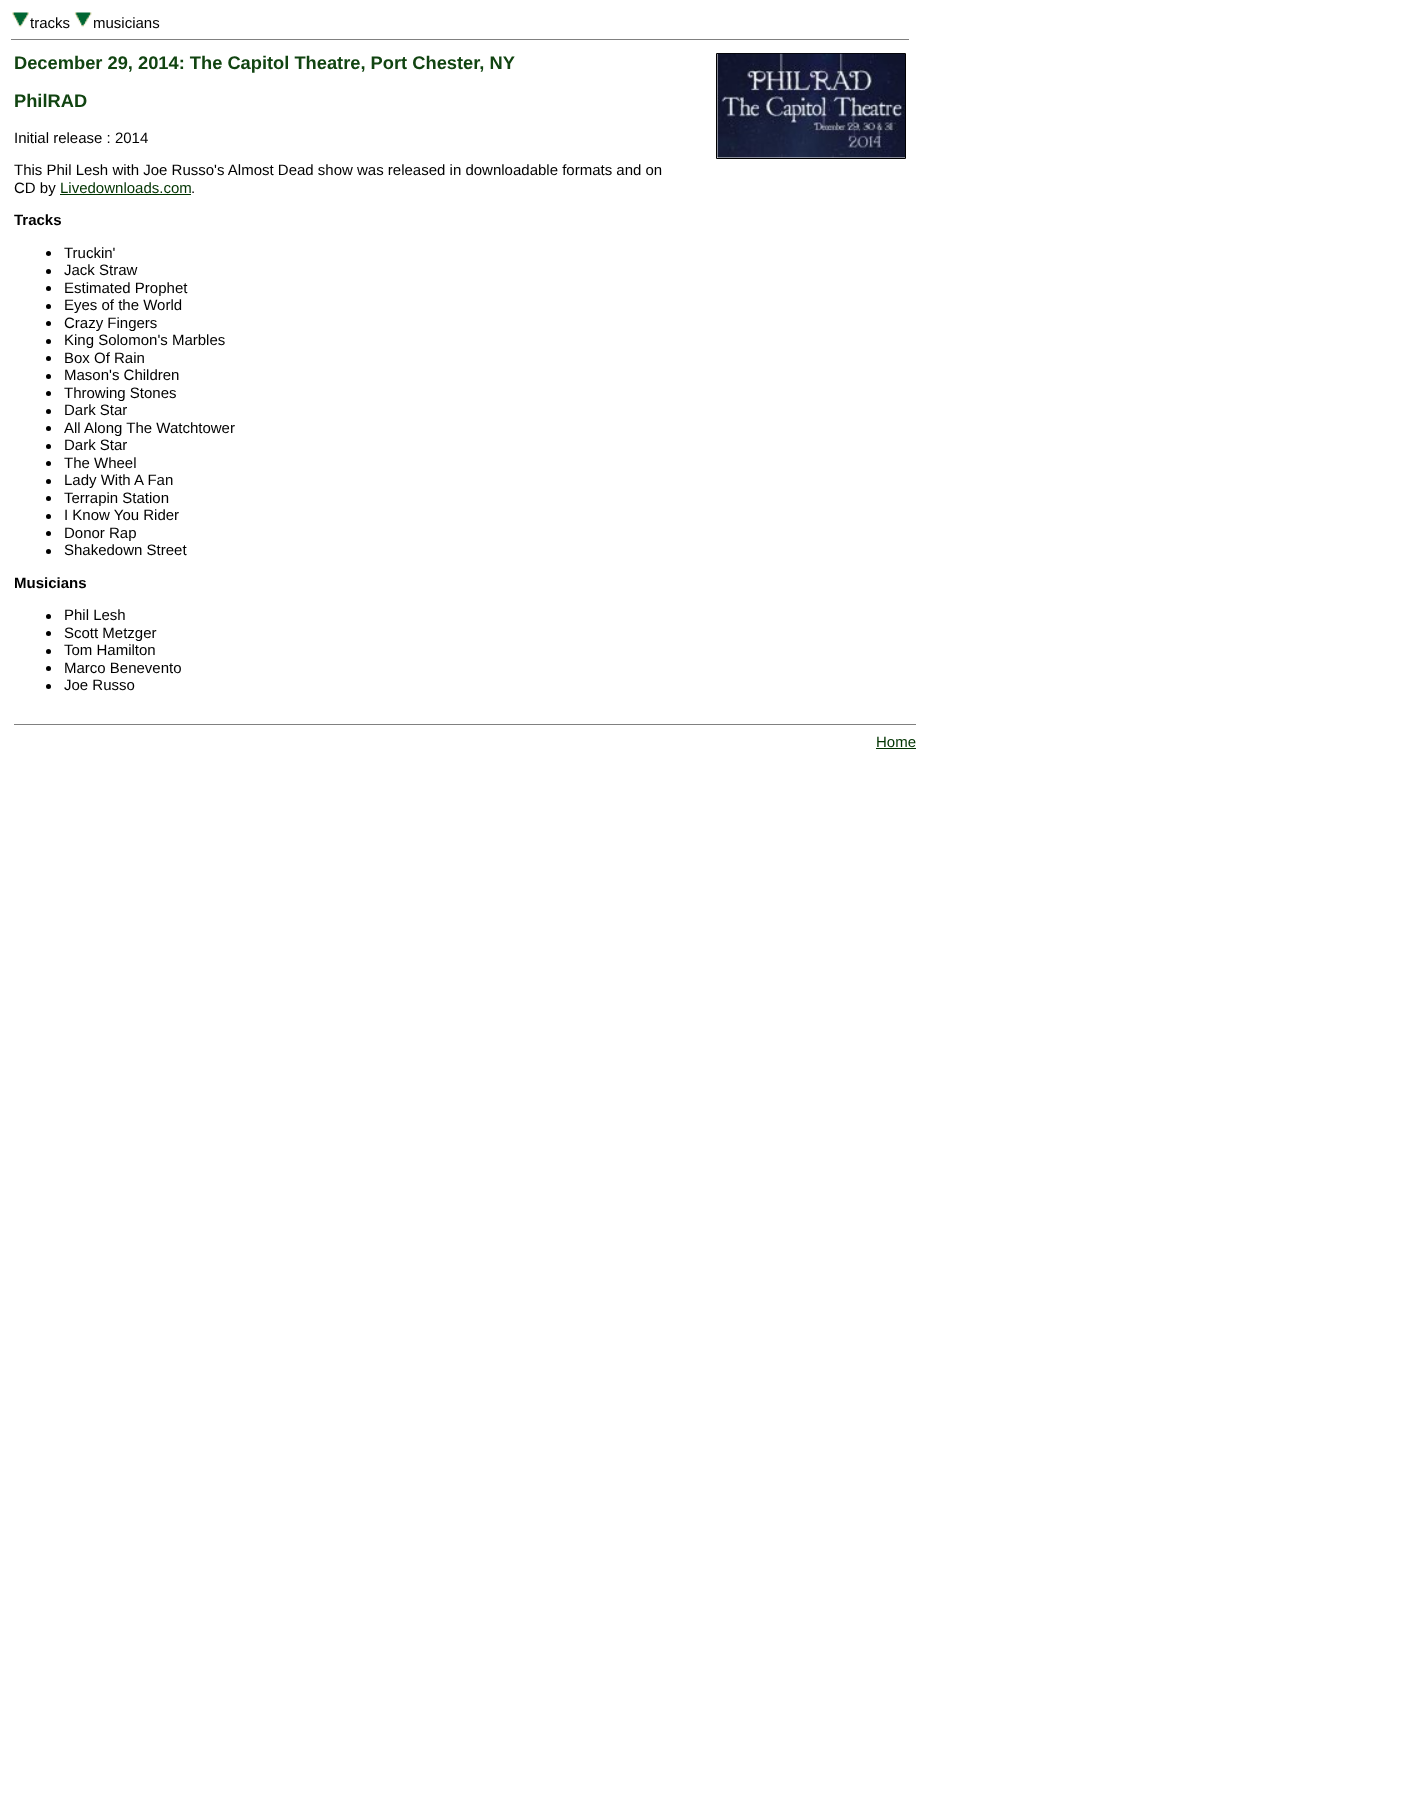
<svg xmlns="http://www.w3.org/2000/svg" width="1403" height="1793">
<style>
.a{font:15px Liberation Sans;fill:#000}
.b{font:bold 18.3px Liberation Sans;fill:#141}
.c{font:15px Liberation Sans;fill:#030}
.d{font:bold 15px Liberation Sans;fill:#000}
</style>
<rect width="100%" height="100%" fill="#fff"/>
<image href="1.png" x="12" y="12" width="17" height="15"/>
<image href="2.png" x="74" y="12" width="18" height="15"/>
<path fill="#808080" d="M11 39h898v1H11z"/>
<path fill="#030" d="M60 194h131v1H60z"/>
<circle fill="#000" cx="48.5" cy="253.5" r="2.5"/>
<circle fill="#000" cx="48.5" cy="271.5" r="2.5"/>
<circle fill="#000" cx="48.5" cy="288.5" r="2.5"/>
<circle fill="#000" cx="48.5" cy="306.5" r="2.5"/>
<circle fill="#000" cx="48.5" cy="323.5" r="2.5"/>
<circle fill="#000" cx="48.5" cy="341.5" r="2.5"/>
<circle fill="#000" cx="48.5" cy="358.5" r="2.5"/>
<circle fill="#000" cx="48.5" cy="376.5" r="2.5"/>
<circle fill="#000" cx="48.5" cy="393.5" r="2.5"/>
<circle fill="#000" cx="48.5" cy="411.5" r="2.5"/>
<circle fill="#000" cx="48.5" cy="428.5" r="2.5"/>
<circle fill="#000" cx="48.5" cy="446.5" r="2.5"/>
<circle fill="#000" cx="48.5" cy="463.5" r="2.5"/>
<circle fill="#000" cx="48.5" cy="481.5" r="2.5"/>
<circle fill="#000" cx="48.5" cy="498.5" r="2.5"/>
<circle fill="#000" cx="48.5" cy="516.5" r="2.5"/>
<circle fill="#000" cx="48.5" cy="533.5" r="2.5"/>
<circle fill="#000" cx="48.5" cy="551.5" r="2.5"/>
<circle fill="#000" cx="48.5" cy="616.5" r="2.5"/>
<circle fill="#000" cx="48.5" cy="633.5" r="2.5"/>
<circle fill="#000" cx="48.5" cy="651.5" r="2.5"/>
<circle fill="#000" cx="48.5" cy="668.5" r="2.5"/>
<circle fill="#000" cx="48.5" cy="686.5" r="2.5"/>
<path fill="none" stroke="#000" d="M716.5 53.5h189v105H716.5z"/>
<image href="3.png" x="717" y="53" width="188" height="105"/>
<path fill="#808080" d="M14 724h902v1H14z"/>
<path fill="#030" d="M876 748h40v1H876z"/>
<text class="a" x="30" y="28">tracks</text>
<text class="a" x="93" y="28">musicians</text>
<text class="b" x="14" y="69">December 29, 2014: The Capitol Theatre, Port Chester, NY</text>
<text class="b" x="14" y="107">PhilRAD</text>
<text class="a" x="14" y="143">Initial release : 2014</text>
<text class="a" x="14" y="175">This Phil Lesh with Joe Russo's Almost Dead show was released in downloadable formats and on</text>
<text class="a" x="14" y="193">CD by</text>
<text class="c" x="60" y="193">Livedownloads.com</text>
<text class="a" x="191" y="193">.</text>
<text class="d" x="14" y="225">Tracks</text>
<text class="a" x="64" y="258">Truckin'</text>
<text class="a" x="64" y="275">Jack Straw</text>
<text class="a" x="64" y="293">Estimated Prophet</text>
<text class="a" x="64" y="310">Eyes of the World</text>
<text class="a" x="64" y="328">Crazy Fingers</text>
<text class="a" x="64" y="345">King Solomon's Marbles</text>
<text class="a" x="64" y="363">Box Of Rain</text>
<text class="a" x="64" y="380">Mason's Children</text>
<text class="a" x="64" y="398">Throwing Stones</text>
<text class="a" x="64" y="415">Dark Star</text>
<text class="a" x="64" y="433">All Along The Watchtower</text>
<text class="a" x="64" y="450">Dark Star</text>
<text class="a" x="64" y="468">The Wheel</text>
<text class="a" x="64" y="485">Lady With A Fan</text>
<text class="a" x="64" y="503">Terrapin Station</text>
<text class="a" x="64" y="520">I Know You Rider</text>
<text class="a" x="64" y="538">Donor Rap</text>
<text class="a" x="64" y="555">Shakedown Street</text>
<text class="d" x="14" y="588">Musicians</text>
<text class="a" x="64" y="620">Phil Lesh</text>
<text class="a" x="64" y="638">Scott Metzger</text>
<text class="a" x="64" y="655">Tom Hamilton</text>
<text class="a" x="64" y="673">Marco Benevento</text>
<text class="a" x="64" y="690">Joe Russo</text>
<text class="c" x="876" y="747">Home</text>
</svg>
